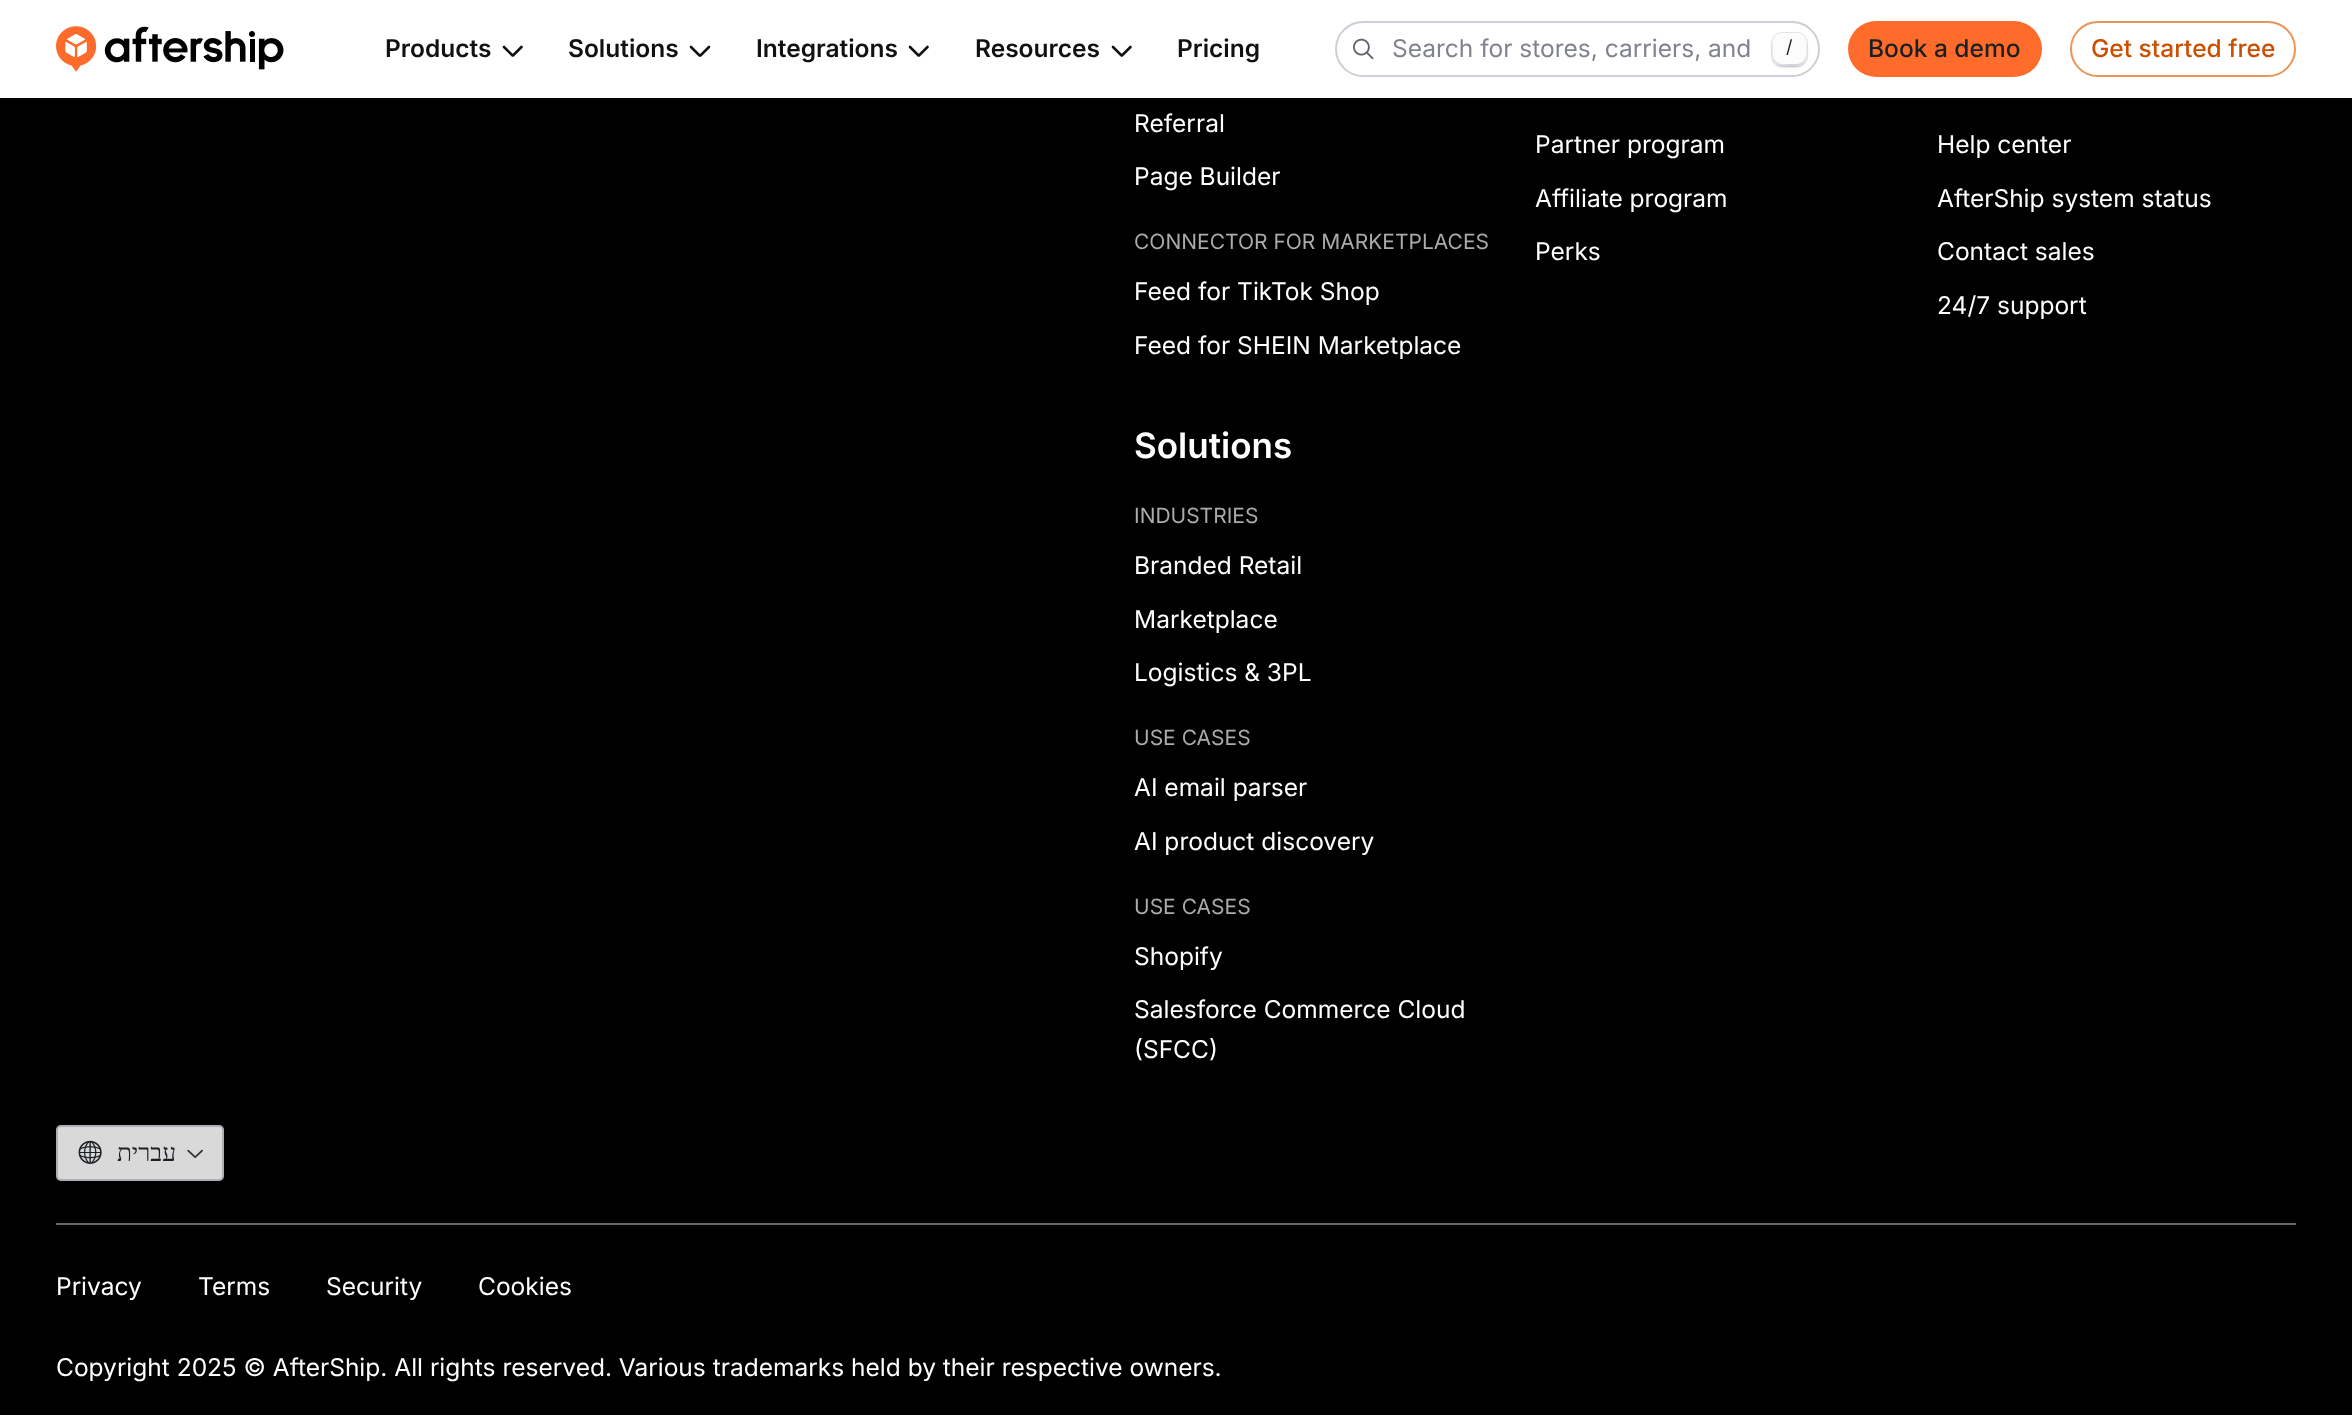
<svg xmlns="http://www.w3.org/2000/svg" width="2352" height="1415">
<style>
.a{font:600 24.5px Inter;fill:#111}
.b{font:24.5px Inter;fill:#80838d}
.c{font:18px Inter;fill:#1c2024}
.d{font:500 24.5px Inter;fill:#1c2024}
.e{font:500 24.5px Inter;fill:#cc4e00}
.f{font:24.5px Inter;fill:#fff}
.g{font:21px Inter;fill:#ababab}
.h{font:600 35px Inter;fill:#fff}
.i{font:24.5px Liberation Serif;direction:rtl;fill:#1c2024}
</style>
<defs>
<clipPath id="clip1"><path d="M1391 32h368v29H1391z"/></clipPath>
</defs>
<rect width="100%" height="100%" fill="#000"/>
<path fill="#fff" d="M0 0h2352v98H0z"/>
<image href="1.png" x="56" y="26" width="228" height="46"/>
<path fill="none" stroke="#111" stroke-width="2.6" stroke-linecap="round" d="M504 47l8.5 8.5h.5l8.5-8.5"/>
<path fill="none" stroke="#111" stroke-width="2.6" stroke-linecap="round" d="M691 47l8.5 8.5h1l8.5-8.5"/>
<path fill="none" stroke="#111" stroke-width="2.6" stroke-linecap="round" d="M910 47l8.5 8.5h.5l8.5-8.5"/>
<path fill="none" stroke="#111" stroke-width="2.6" stroke-linecap="round" d="M1113 47l8.5 8.5h.5l8.5-8.5"/>
<rect fill="none" stroke="#cdced6" stroke-width="2" x="1336" y="22" width="483" height="54" rx="27"/>
<image href="2.png" x="1353" y="38" width="21" height="22"/>
<rect fill="#00062e33" filter="blur(1.5px)" x="1773" y="35" width="33" height="32" rx="11"/>
<rect fill="none" stroke="#0009321f" stroke-width="0.9" x="1771.45" y="32.45" width="36.1" height="34.1" rx="10.55"/>
<rect fill="#fcfcfd" x="1773" y="33" width="33" height="32" rx="11"/>
<path fill="#00002f26" d="M1776.5 62c4 3.5 8.5 3 13 3c5 0 10.5 .5 14-4c-3.5 4-9.5 3-14.5 3c-4 0-9 1-12.5-2z"/>
<path fill="#fff" d="M1782 34h14c3 0 5.5 1 7.5 3c-3.5-4.5-9-4-14-4c-4.5 0-9-.5-13 3c1.5-1.5 3.5-2 5.5-2z"/>
<rect fill="#ff6b2b" x="1848" y="21" width="194" height="56" rx="28"/>
<rect fill="none" stroke="#ec9455" stroke-width="2" x="2071" y="22" width="224" height="54" rx="27"/>
<rect fill="#d9d9d9" x="56" y="1125" width="168" height="56" rx="5"/>
<rect fill="none" stroke="#00062e33" stroke-width="2" x="57" y="1126" width="166" height="54" rx="4"/>
<image href="3.png" x="78" y="1140" width="24" height="24"/>
<image href="4.png" x="187" y="1149" width="16" height="9"/>
<path fill="#666" d="M56 1223h2240v2H56z"/>
<text class="a" x="385" y="57">Products</text>
<text class="a" x="568" y="57">Solutions</text>
<text class="a" x="756" y="57">Integrations</text>
<text class="a" x="975" y="57">Resources</text>
<text class="a" x="1177" y="57">Pricing</text>
<g clip-path="url(#clip1)">
<text class="b" x="1392" y="57">Search for stores, carriers, and</text>
</g>
<text class="c" x="1786" y="53">/</text>
<text class="d" x="1868" y="57">Book a demo</text>
<text class="e" x="2091" y="57">Get started free</text>
<text class="f" x="1134" y="132">Referral</text>
<text class="f" x="1134" y="185">Page Builder</text>
<text class="g" x="1134" y="249">CONNECTOR FOR MARKETPLACES</text>
<text class="f" x="1134" y="300">Feed for TikTok Shop</text>
<text class="f" x="1134" y="354">Feed for SHEIN Marketplace</text>
<text class="f" x="1535" y="153">Partner program</text>
<text class="f" x="1535" y="207">Affiliate program</text>
<text class="f" x="1535" y="260">Perks</text>
<text class="f" x="1937" y="153">Help center</text>
<text class="f" x="1937" y="207">AfterShip system status</text>
<text class="f" x="1937" y="260">Contact sales</text>
<text class="f" x="1937" y="314">24/7 support</text>
<text class="h" x="1134" y="458">Solutions</text>
<text class="g" x="1134" y="523">INDUSTRIES</text>
<text class="f" x="1134" y="574">Branded Retail</text>
<text class="f" x="1134" y="628">Marketplace</text>
<text class="f" x="1134" y="681">Logistics &amp; 3PL</text>
<text class="g" x="1134" y="745">USE CASES</text>
<text class="f" x="1134" y="796">AI email parser</text>
<text class="f" x="1134" y="850">AI product discovery</text>
<text class="g" x="1134" y="914">USE CASES</text>
<text class="f" x="1134" y="965">Shopify</text>
<text class="f" x="1134" y="1018">Salesforce Commerce Cloud</text>
<text class="f" x="1134" y="1058">(SFCC)</text>
<text class="i" x="176" y="1161">עברית</text>
<text class="f" x="56" y="1295">Privacy</text>
<text class="f" x="198" y="1295">Terms</text>
<text class="f" x="326" y="1295">Security</text>
<text class="f" x="478" y="1295">Cookies</text>
<text class="f" x="56" y="1376">Copyright 2025 © AfterShip. All rights reserved. Various trademarks held by their respective owners.</text>
</svg>
